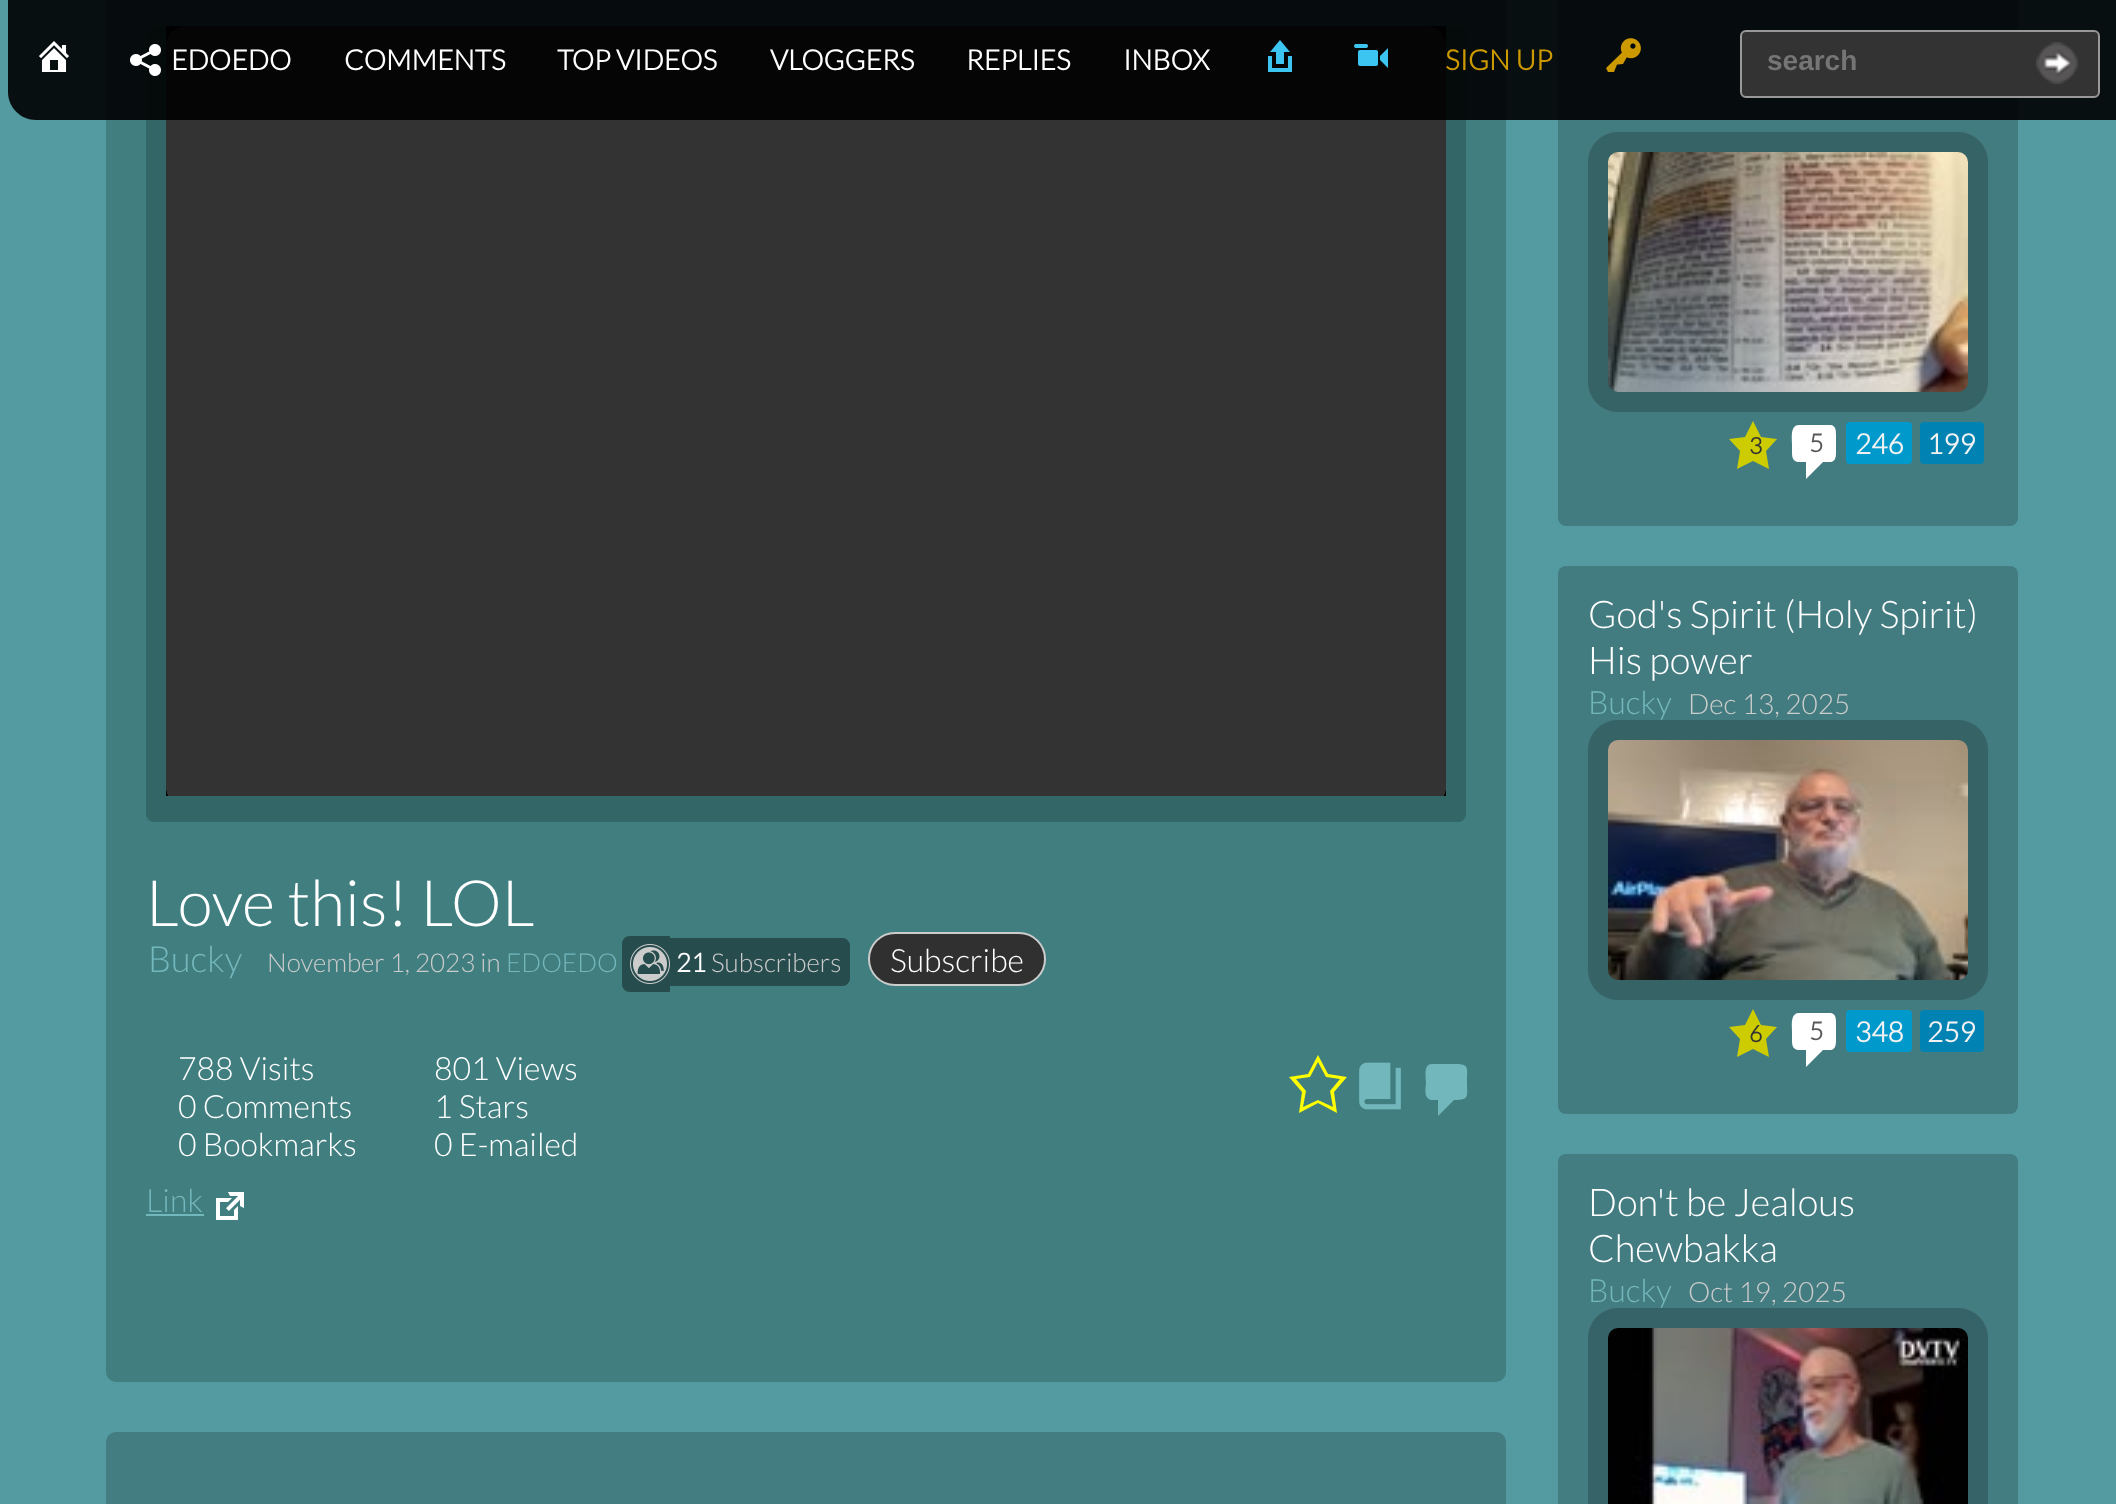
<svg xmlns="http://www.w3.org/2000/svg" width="2116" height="1504">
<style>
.a{font:bold 28px Lato;fill:#fff}
.b{font:bold 28px Lato;fill:#c90}
.c{font:bold 28px Liberation Sans;fill:#757575}
.d{font:300 64px Lato;fill:#fff}
.e{font:300 36px Lato;fill:#72b7bc}
.f{font:300 26px Lato;fill:#ccc}
.g{font:300 26px Lato;fill:#72b7bc}
.h{font:bold 26px Lato;fill:#fff}
.i{font:300 32px Lato;fill:#fff}
.j{font:300 32px Lato;fill:#72b7bc}
.k{font:bold 23px Lato;fill:#333}
.l{font:bold 25px Lato;fill:#595959}
.m{font:bold 28px Lato;fill:#f2f2f2}
.n{font:300 38px Lato;fill:#fff}
.o{font:300 28px Lato;fill:#ccc}
</style>
<rect width="100%" height="100%" fill="#549ba1"/>
<rect fill="#417e80" x="106" y="-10" width="1400" height="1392" rx="10"/>
<rect fill="#366" x="146" y="26" width="1320" height="796" rx="8"/>
<image href="7.png" x="166" y="26" width="1280" height="770"/>
<rect fill="#437c80" x="1558" y="-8" width="460" height="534" rx="8"/>
<path fill="#000000e6" d="M8 0h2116v120h-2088c-15.5 0-28-12.5-28-28z"/>
<image href="1.png" x="39" y="41" width="30" height="31"/>
<image href="2.png" x="130" y="44" width="31" height="32"/>
<image href="3.png" x="1267" y="40" width="26" height="32"/>
<image href="4.png" x="1354" y="44" width="34" height="24"/>
<image href="5.png" x="1606" y="38" width="35" height="34"/>
<rect fill="#333" stroke="#999" stroke-width="2" x="1741" y="31" width="358" height="66" rx="5"/>
<image href="6.png" x="2036" y="42" width="43" height="42"/>
<path fill="#274c4d" d="M630 936h40v56h-40c-4.5 0-8-3.5-8-8v-40c0-4.5 3.5-8 8-8z"/>
<path fill="#274c4d" d="M670 938h36v48H670z"/>
<path fill="#274c4d" d="M706 938h136c4.5 0 8 3.5 8 8v32c0 4.5-3.5 8-8 8h-136z"/>
<image href="8.png" x="630" y="944" width="40" height="40"/>
<rect fill="#303030" stroke="#ccc" stroke-width="2" x="869" y="933" width="176" height="52" rx="26"/>
<path fill="#ff0" d="M1318 1055l-10 19l-19 3l13 15l-3 21l19-10l19 10l-3-21l13-15l-19-3zm0 7l8 15l14 2l-10 12l3 16l-15-7l-15 7l3-16l-10-12l14-2z"/>
<image href="9.png" x="1359" y="1062" width="42" height="48"/>
<path fill="#72b7bc" d="M1432 1064h24c14 0 11 5 11 18c0 15 3 18-13 18l-16 16v-16h-7c-8-2-5-13-5-18c0-5-3-18 6-18z"/>
<path fill="#72b7bc" d="M146 1214h58v2H146z"/>
<image href="10.png" x="216" y="1192" width="28" height="28"/>
<rect fill="#437c81" x="106" y="1432" width="1400" height="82" rx="10"/>
<rect fill="#366366" x="1588" y="132" width="400" height="280" rx="30"/>
<image href="11.png" x="1608" y="152" width="360" height="240"/>
<path fill="#cc0" d="M1753 421l8 16l16 2l-11 12l3 18l-16-8l-16 8l3-18l-11-12l16-2z"/>
<path fill="#fff" d="M1799 425h32c5 1 5 6 5 11v15c0 5 0 10-5 11h-8l-17 17v-17h-8c-6-1-6-6-6-11v-7c0-6-2-19 7-19z"/>
<rect fill="#09c" x="1846" y="422" width="66" height="42" rx="4"/>
<rect fill="#0083b3" x="1920" y="422" width="64" height="42" rx="4"/>
<rect fill="#437c80" x="1558" y="566" width="460" height="548" rx="8"/>
<rect fill="#366366" x="1588" y="720" width="400" height="280" rx="30"/>
<image href="12.png" x="1608" y="740" width="360" height="240"/>
<path fill="#cc0" d="M1753 1009l8 16l16 2l-11 12l3 18l-16-8l-16 8l3-18l-11-12l16-2z"/>
<path fill="#fff" d="M1799 1013h32c5 1 5 6 5 11v15c0 5 0 10-5 11h-8l-17 17v-17h-8c-6-1-6-6-6-11v-7c0-6-2-19 7-19z"/>
<rect fill="#09c" x="1846" y="1010" width="66" height="42" rx="4"/>
<rect fill="#0083b3" x="1920" y="1010" width="64" height="42" rx="4"/>
<rect fill="#437c81" x="1558" y="1154" width="460" height="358" rx="8"/>
<rect fill="#366367" x="1588" y="1308" width="400" height="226" rx="30"/>
<image href="13.png" x="1608" y="1328" width="360" height="176"/>
<text class="a" x="171" y="70">EDOEDO</text>
<text class="a" x="344" y="70">COMMENTS</text>
<text class="a" x="557" y="70">TOP VIDEOS</text>
<text class="a" x="770" y="70">VLOGGERS</text>
<text class="a" x="966" y="70">REPLIES</text>
<text class="a" x="1123" y="70">INBOX</text>
<text class="b" x="1445" y="70">SIGN UP</text>
<text class="c" x="1767" y="70">search</text>
<text class="d" x="146" y="926">Love this! LOL</text>
<text class="e" x="148" y="972">Bucky</text>
<text class="f" x="267" y="972">November 1, 2023 in</text>
<text class="g" x="506" y="972">EDOEDO</text>
<text class="h" x="676" y="972">21</text>
<text class="f" x="711" y="972">Subscribers</text>
<text class="i" x="890" y="972">Subscribe</text>
<text class="i" x="178" y="1080">788 Visits</text>
<text class="i" x="434" y="1080">801 Views</text>
<text class="i" x="434" y="1118">1 Stars</text>
<text class="i" x="434" y="1156">0 E-mailed</text>
<text class="i" x="178" y="1118">0 Comments</text>
<text class="i" x="178" y="1156">0 Bookmarks</text>
<text class="j" x="146" y="1212">Link</text>
<text class="k" x="1749" y="454">3</text>
<text class="l" x="1809" y="452">5</text>
<text class="m" x="1855" y="454">246</text>
<text class="m" x="1927" y="454">199</text>
<text class="n" x="1588" y="628">God's Spirit (Holy Spirit)</text>
<text class="n" x="1588" y="674">His power</text>
<text class="j" x="1588" y="714">Bucky</text>
<text class="o" x="1688" y="714">Dec 13, 2025</text>
<text class="k" x="1749" y="1042">6</text>
<text class="l" x="1809" y="1040">5</text>
<text class="m" x="1855" y="1042">348</text>
<text class="m" x="1927" y="1042">259</text>
<text class="n" x="1588" y="1216">Don't be Jealous</text>
<text class="n" x="1588" y="1262">Chewbakka</text>
<text class="j" x="1588" y="1302">Bucky</text>
<text class="o" x="1688" y="1302">Oct 19, 2025</text>
</svg>
